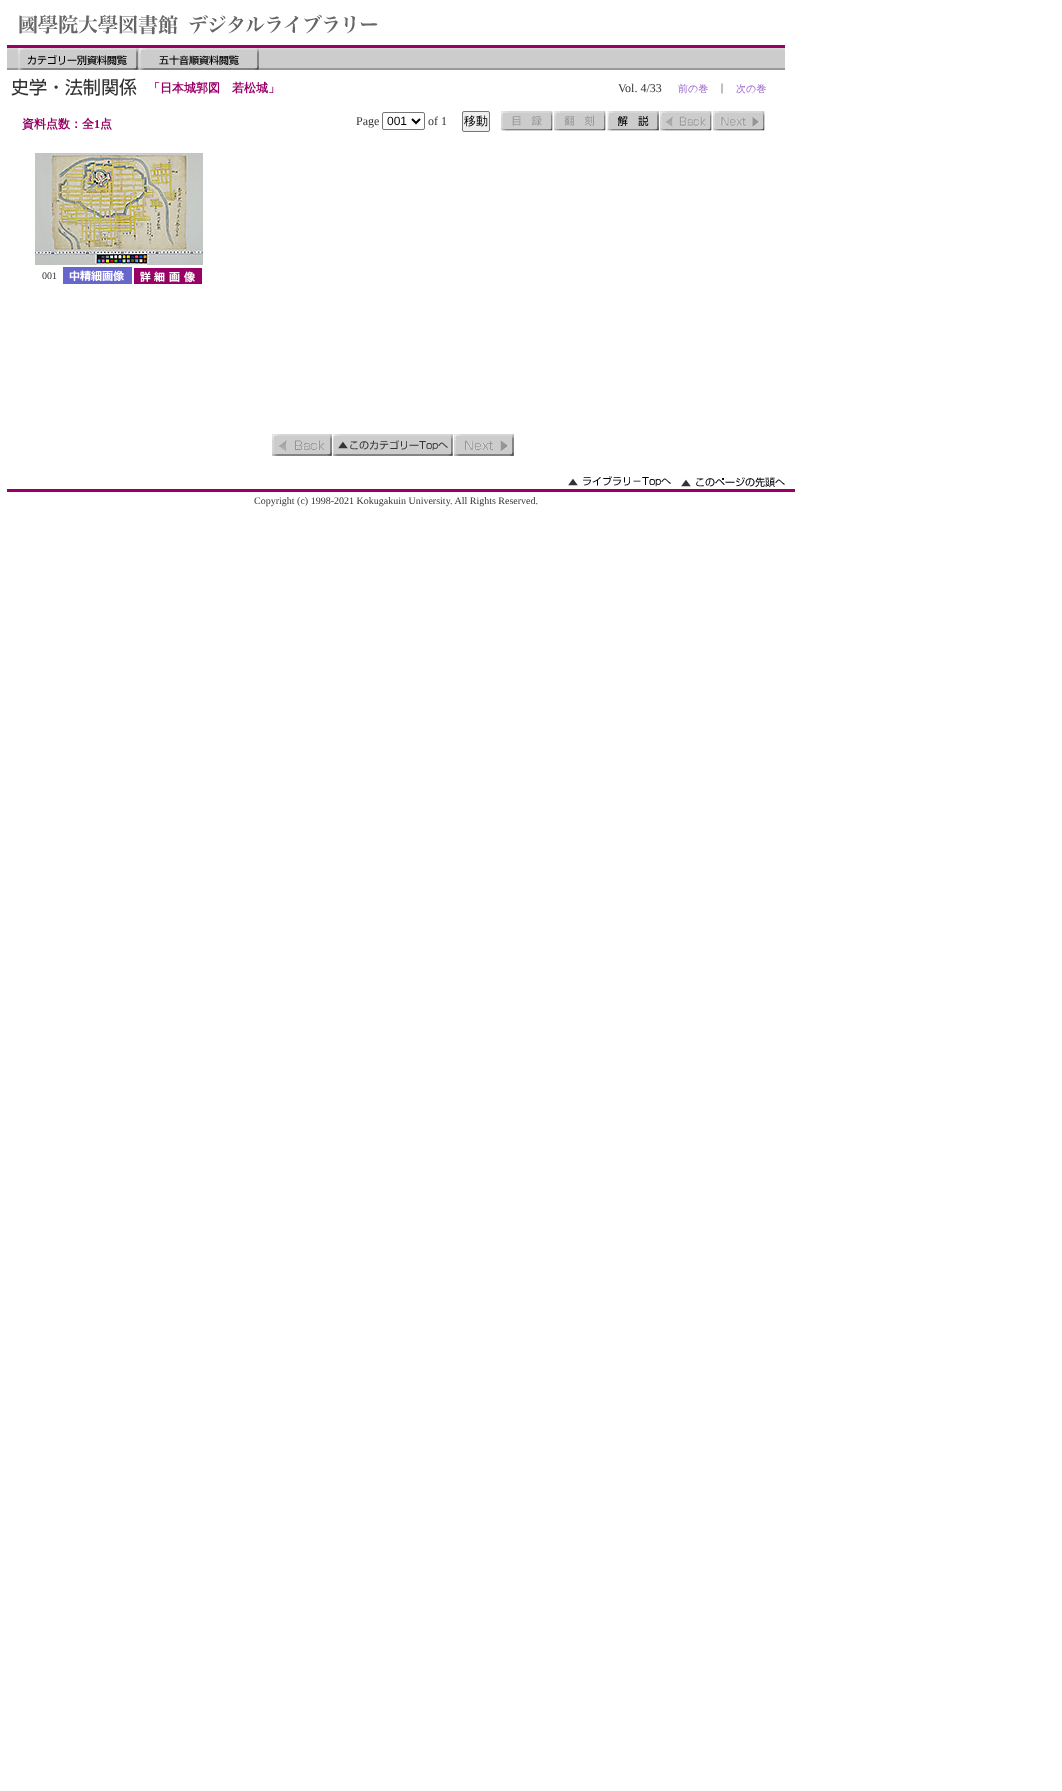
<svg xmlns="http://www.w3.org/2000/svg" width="1062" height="1791">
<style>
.a{font:bold 12px WenQuanYi Zen Hei;fill:#906}
.b{font:12px Liberation Serif;fill:#333}
.c{font:500 10px WenQuanYi Zen Hei;fill:#96c}
.d{font:500 10px WenQuanYi Zen Hei;fill:#333}
.e{font:bold 12px Liberation Serif;fill:#906}
.f{font:12px Liberation Sans;fill:#000}
.g{font:500 12px WenQuanYi Zen Hei;fill:#000}
.h{font:10px Liberation Serif;fill:#333}
</style>
<rect width="100%" height="100%" fill="#fff"/>
<image href="1.png" x="19" y="14" width="359" height="21"/>
<image href="2.png" x="7" y="48" width="778" height="22"/>
<path fill="#906" d="M7 45h778v3H7z"/>
<image href="3.png" x="18" y="48" width="120" height="22"/>
<image href="4.png" x="139" y="48" width="120" height="22"/>
<image href="5.png" x="11" y="78" width="126" height="18"/>
<rect fill="none" stroke="#767676" x="382.5" y="112.5" width="42" height="17" rx="1.5"/>
<path fill="none" stroke="#000" stroke-width="2" d="M412 119l4 4l4-4"/>
<rect fill="#efefef" stroke="#767676" x="462.5" y="111.5" width="27" height="20" rx="1.5"/>
<image href="6.png" x="501" y="111" width="52" height="20"/>
<image href="7.png" x="554" y="111" width="52" height="20"/>
<image href="8.png" x="607" y="111" width="52" height="20"/>
<image href="9.png" x="660" y="111" width="52" height="20"/>
<image href="10.png" x="713" y="111" width="52" height="20"/>
<image href="11.png" x="35" y="153" width="168" height="112"/>
<image href="12.png" x="63" y="267" width="69" height="17"/>
<image href="13.png" x="134" y="268" width="68" height="16"/>
<image href="14.png" x="272" y="434" width="60" height="22"/>
<image href="15.png" x="333" y="434" width="120" height="22"/>
<image href="16.png" x="454" y="434" width="60" height="22"/>
<path fill="#906" d="M7 489h788v3H7z"/>
<image href="17.png" x="568" y="476" width="103" height="11"/>
<image href="18.png" x="681" y="477" width="104" height="10"/>
<text class="a" x="148" y="92">「日本城郭図　若松城」</text>
<text class="b" x="618" y="92">Vol. 4/33</text>
<text class="c" x="678" y="92">前の巻</text>
<text class="d" x="717" y="91">｜</text>
<text class="c" x="736" y="92">次の巻</text>
<text class="a" x="22" y="128">資料点数：全</text>
<text class="e" x="94" y="128">1</text>
<text class="a" x="100" y="128">点</text>
<text class="b" x="356" y="125">Page</text>
<text class="f" x="387" y="125">001</text>
<text class="b" x="428" y="125">of 1</text>
<text class="g" x="464" y="125">移動</text>
<text class="h" x="42" y="279">001</text>
<text class="h" x="254" y="504">Copyright (c) 1998-2021 Kokugakuin University. All Rights Reserved.</text>
</svg>
